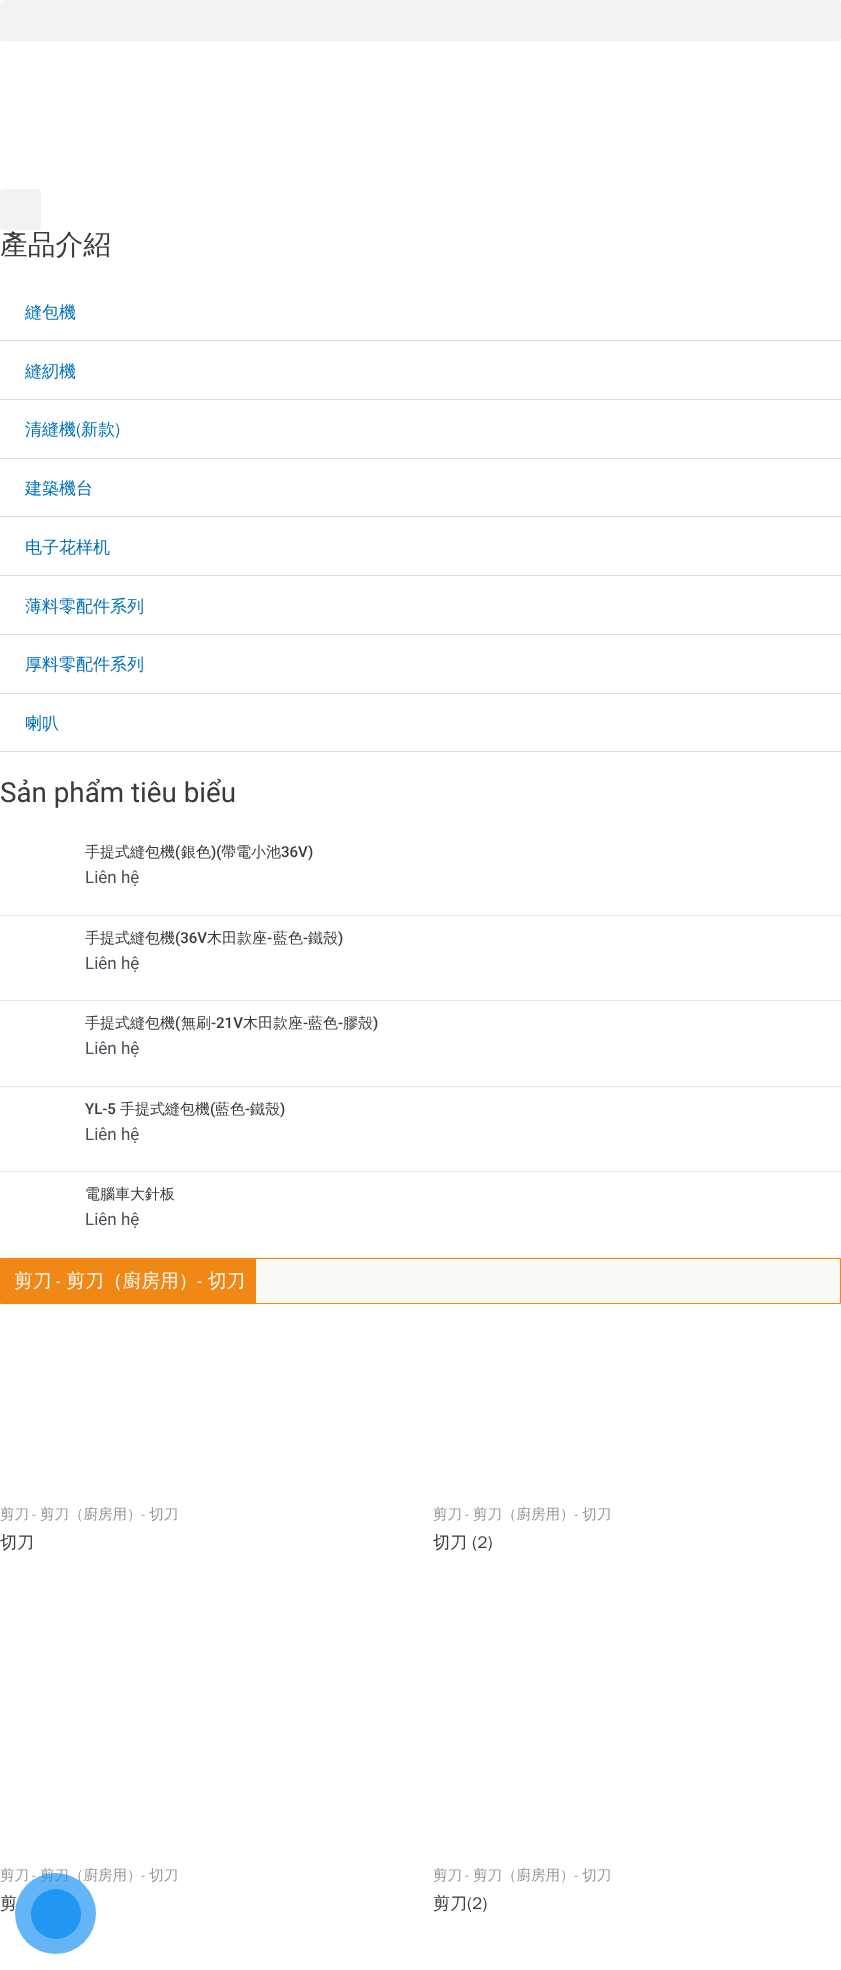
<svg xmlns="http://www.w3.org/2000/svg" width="841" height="1970">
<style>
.a{font:500 27.75px WenQuanYi Zen Hei;fill:#3a3a3a}
.b{font:500 17px WenQuanYi Zen Hei;fill:#0170b9}
.c{font:27.75px Roboto;fill:#3a3a3a}
.d{font:500 15px WenQuanYi Zen Hei;fill:#3a3a3a}
.e{font:500 15px Roboto;fill:#3a3a3a}
.f{font:17px Roboto;fill:#4b4f58}
.g{font:500 18.75px WenQuanYi Zen Hei;fill:#fff}
.h{font:500 14.5px WenQuanYi Zen Hei;fill:#93959b}
.i{font:500 17px WenQuanYi Zen Hei;fill:#3a3a3a}
</style>
<rect width="100%" height="100%" fill="#fff"/>
<rect fill="#f2f2f2" width="841" height="41" rx="4"/>
<rect fill="#f2f2f2" y="189" width="41" height="41" rx="4"/>
<path fill="#ddd" d="M0 340h841v1H0z"/>
<path fill="#ddd" d="M0 399h841v1H0z"/>
<path fill="#ddd" d="M0 458h841v1H0z"/>
<path fill="#ddd" d="M0 516h841v1H0z"/>
<path fill="#ddd" d="M0 575h841v1H0z"/>
<path fill="#ddd" d="M0 634h841v1H0z"/>
<path fill="#ddd" d="M0 693h841v1H0z"/>
<path fill="#ddd" d="M0 751h841v1H0z"/>
<path fill="#e5e5e5" d="M0 915h841v1H0z"/>
<path fill="#e5e5e5" d="M0 1000h841v1H0z"/>
<path fill="#e5e5e5" d="M0 1086h841v1H0z"/>
<path fill="#e5e5e5" d="M0 1171h841v1H0z"/>
<path fill="#fafbf5" d="M256 1259h584v44H256z"/>
<path fill="none" stroke="#f18715" d="M0.5 1258.5h840v45H0.5z"/>
<path fill="#f18715" d="M1 1259h255v44H1z"/>
<text class="a" x="0" y="254">產品介紹</text>
<text class="b" x="25" y="318">縫包機</text>
<text class="b" x="25" y="377">縫紉機</text>
<text class="b" x="25" y="435">清縫機(新款)</text>
<text class="b" x="25" y="494">建築機台</text>
<text class="b" x="25" y="553">电子花样机</text>
<text class="b" x="25" y="612">薄料零配件系列</text>
<text class="b" x="25" y="670">厚料零配件系列</text>
<text class="b" x="25" y="729">喇叭</text>
<text class="c" x="0" y="802">Sản phẩm tiêu biểu</text>
<text class="d" x="85" y="857">手提式縫包機</text>
<text class="e" x="175" y="857">(</text>
<text class="d" x="181" y="857">銀色</text>
<text class="e" x="211" y="857">)(</text>
<text class="d" x="221" y="857">帶電小池</text>
<text class="e" x="281" y="857">36V)</text>
<text class="f" x="85" y="883">Liên hệ</text>
<text class="d" x="85" y="943">手提式縫包機</text>
<text class="e" x="175" y="943">(36V</text>
<text class="d" x="207" y="943">木田款座</text>
<text class="e" x="267" y="943">-</text>
<text class="d" x="273" y="943">藍色</text>
<text class="e" x="303" y="943">-</text>
<text class="d" x="308" y="943">鐵殼</text>
<text class="e" x="338" y="943">)</text>
<text class="f" x="85" y="969">Liên hệ</text>
<text class="d" x="85" y="1028">手提式縫包機</text>
<text class="e" x="175" y="1028">(</text>
<text class="d" x="181" y="1028">無刷</text>
<text class="e" x="211" y="1028">-21V</text>
<text class="d" x="243" y="1028">木田款座</text>
<text class="e" x="303" y="1028">-</text>
<text class="d" x="308" y="1028">藍色</text>
<text class="e" x="338" y="1028">-</text>
<text class="d" x="343" y="1028">膠殼</text>
<text class="e" x="373" y="1028">)</text>
<text class="f" x="85" y="1054">Liên hệ</text>
<text class="e" x="85" y="1114">YL-5</text>
<text class="d" x="120" y="1114">手提式縫包機</text>
<text class="e" x="210" y="1114">(</text>
<text class="d" x="215" y="1114">藍色</text>
<text class="e" x="245" y="1114">-</text>
<text class="d" x="250" y="1114">鐵殼</text>
<text class="e" x="280" y="1114">)</text>
<text class="f" x="85" y="1140">Liên hệ</text>
<text class="d" x="85" y="1199">電腦車大針板</text>
<text class="f" x="85" y="1225">Liên hệ</text>
<text class="g" x="14" y="1287" word-spacing="-1">剪刀 - 剪刀（廚房用）- 切刀</text>
<text class="h" x="0" y="1519" word-spacing="-1">剪刀 - 剪刀（廚房用）- 切刀</text>
<text class="i" x="0" y="1548">切刀</text>
<text class="h" x="433" y="1519" word-spacing="-1">剪刀 - 剪刀（廚房用）- 切刀</text>
<text class="i" x="433" y="1548">切刀 (2)</text>
<text class="h" x="0" y="1880" word-spacing="-1">剪刀 - 剪刀（廚房用）- 切刀</text>
<text class="i" x="0" y="1909">剪</text>
<text class="h" x="433" y="1880" word-spacing="-1">剪刀 - 剪刀（廚房用）- 切刀</text>
<text class="i" x="433" y="1909">剪刀(2)</text>
<circle fill="#2196f3b3" cx="55.5" cy="1913.5" r="40.5"/>
<circle fill="#2196f3" cx="56" cy="1914" r="25"/>
</svg>
